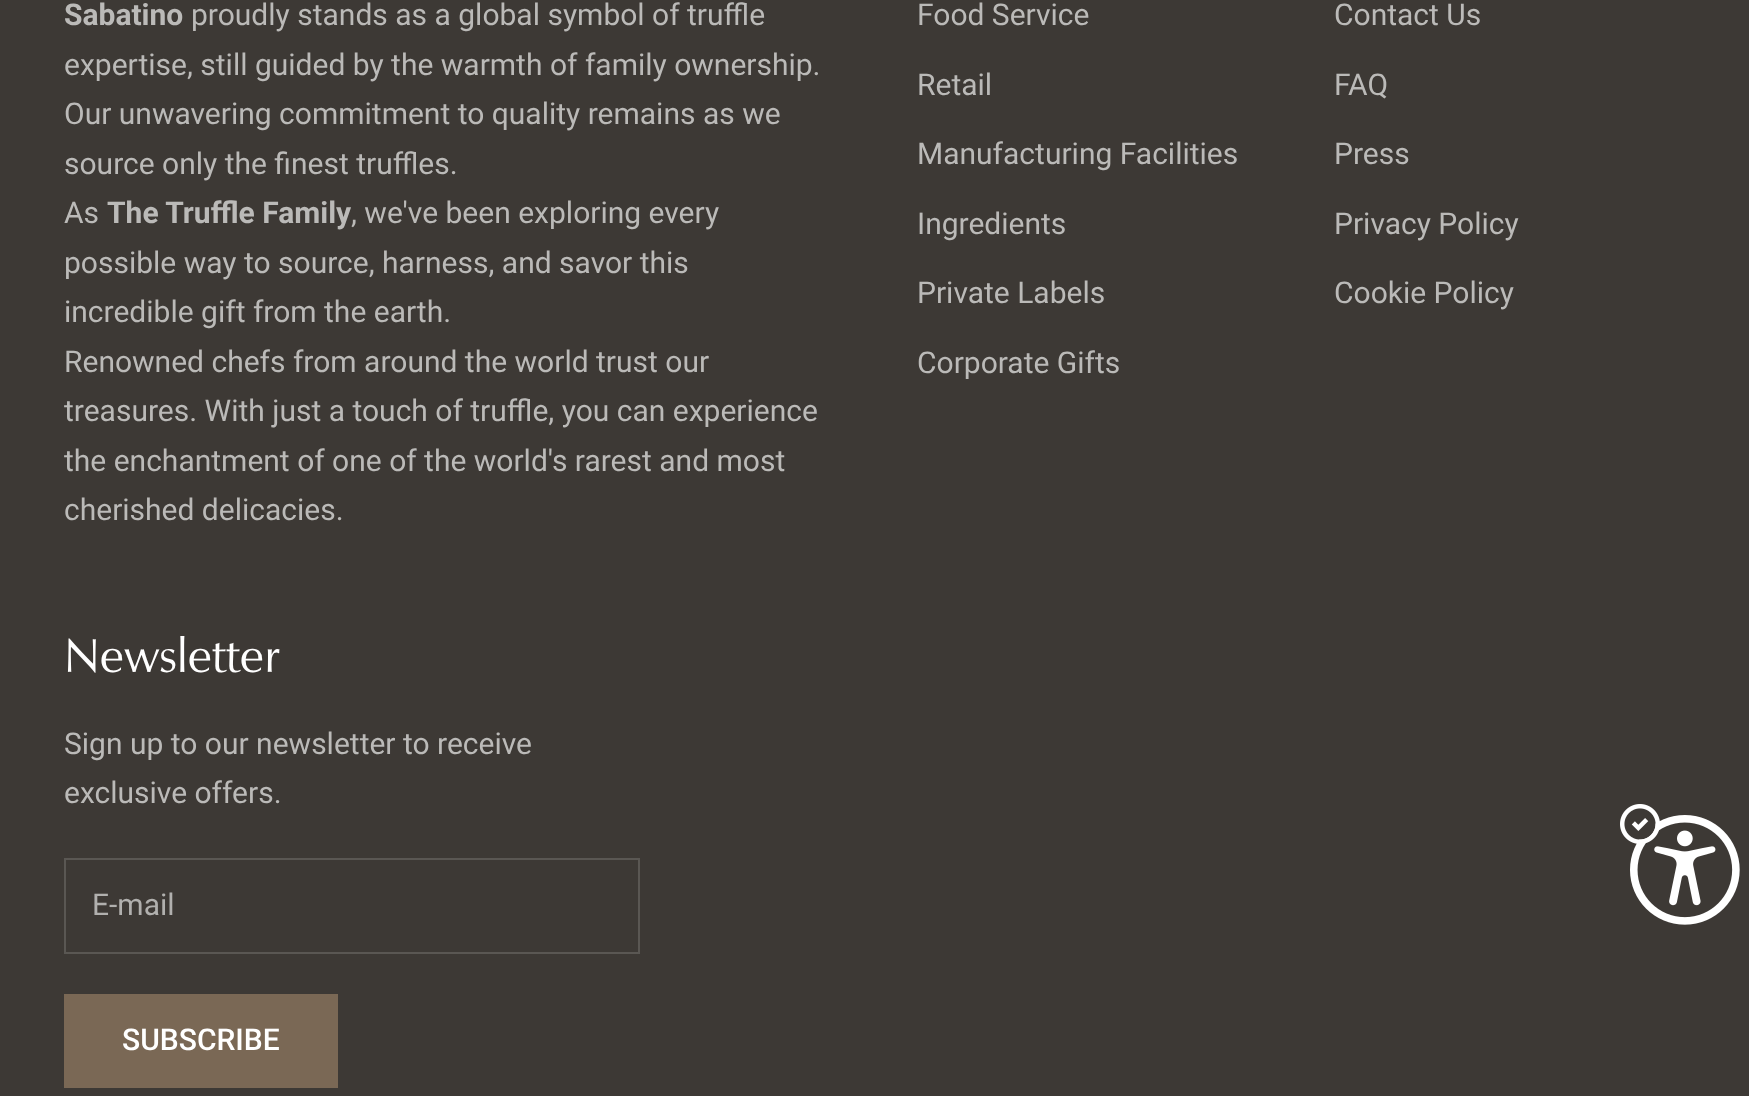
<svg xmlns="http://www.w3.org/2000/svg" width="1749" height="1096">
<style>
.a{font:bold 30px Roboto;fill:#bbbab8}
.b{font:30px Roboto;fill:#bbbab8}
.c{font:48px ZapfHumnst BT;fill:#fff}
.d{font:30px Roboto;fill:#b1b0ae}
.e{font:500 30px Roboto;fill:#fff}
</style>
<rect width="100%" height="100%" fill="#3d3935"/>
<path fill="none" stroke="#5a5753" stroke-width="2" d="M65 859h574v94H65z"/>
<path fill="#7a6855" stroke="#7a6855" stroke-width="2" d="M65 995h272v92H65z"/>
<image href="2.png" x="1630" y="815" width="110" height="110"/>
<image href="1.png" x="1620" y="804" width="40" height="40"/>
<text class="a" x="64" y="25">Sabatino</text>
<text class="b" x="191" y="25">proudly stands as a global symbol of truffle</text>
<text class="b" x="64" y="75">expertise, still guided by the warmth of family ownership.</text>
<text class="b" x="64" y="124">Our unwavering commitment to quality remains as we</text>
<text class="b" x="64" y="174">source only the finest truffles.</text>
<text class="b" x="64" y="223">As</text>
<text class="a" x="107" y="223">The Truffle Family</text>
<text class="b" x="351" y="223">, we've been exploring every</text>
<text class="b" x="64" y="273">possible way to source, harness, and savor this</text>
<text class="b" x="64" y="322">incredible gift from the earth.</text>
<text class="b" x="64" y="372">Renowned chefs from around the world trust our</text>
<text class="b" x="64" y="421">treasures. With just a touch of truffle, you can experience</text>
<text class="b" x="64" y="471">the enchantment of one of the world's rarest and most</text>
<text class="b" x="64" y="520">cherished delicacies.</text>
<text class="b" x="917" y="25">Food Service</text>
<text class="b" x="917" y="95">Retail</text>
<text class="b" x="917" y="164">Manufacturing Facilities</text>
<text class="b" x="917" y="234">Ingredients</text>
<text class="b" x="917" y="303">Private Labels</text>
<text class="b" x="917" y="373">Corporate Gifts</text>
<text class="b" x="1334" y="25">Contact Us</text>
<text class="b" x="1334" y="95">FAQ</text>
<text class="b" x="1334" y="164">Press</text>
<text class="b" x="1334" y="234">Privacy Policy</text>
<text class="b" x="1334" y="303">Cookie Policy</text>
<text class="c" x="64" y="672">Newsletter</text>
<text class="b" x="64" y="754">Sign up to our newsletter to receive</text>
<text class="b" x="64" y="803">exclusive offers.</text>
<text class="d" x="92" y="915">E-mail</text>
<text class="e" x="122" y="1050">SUBSCRIBE</text>
</svg>
